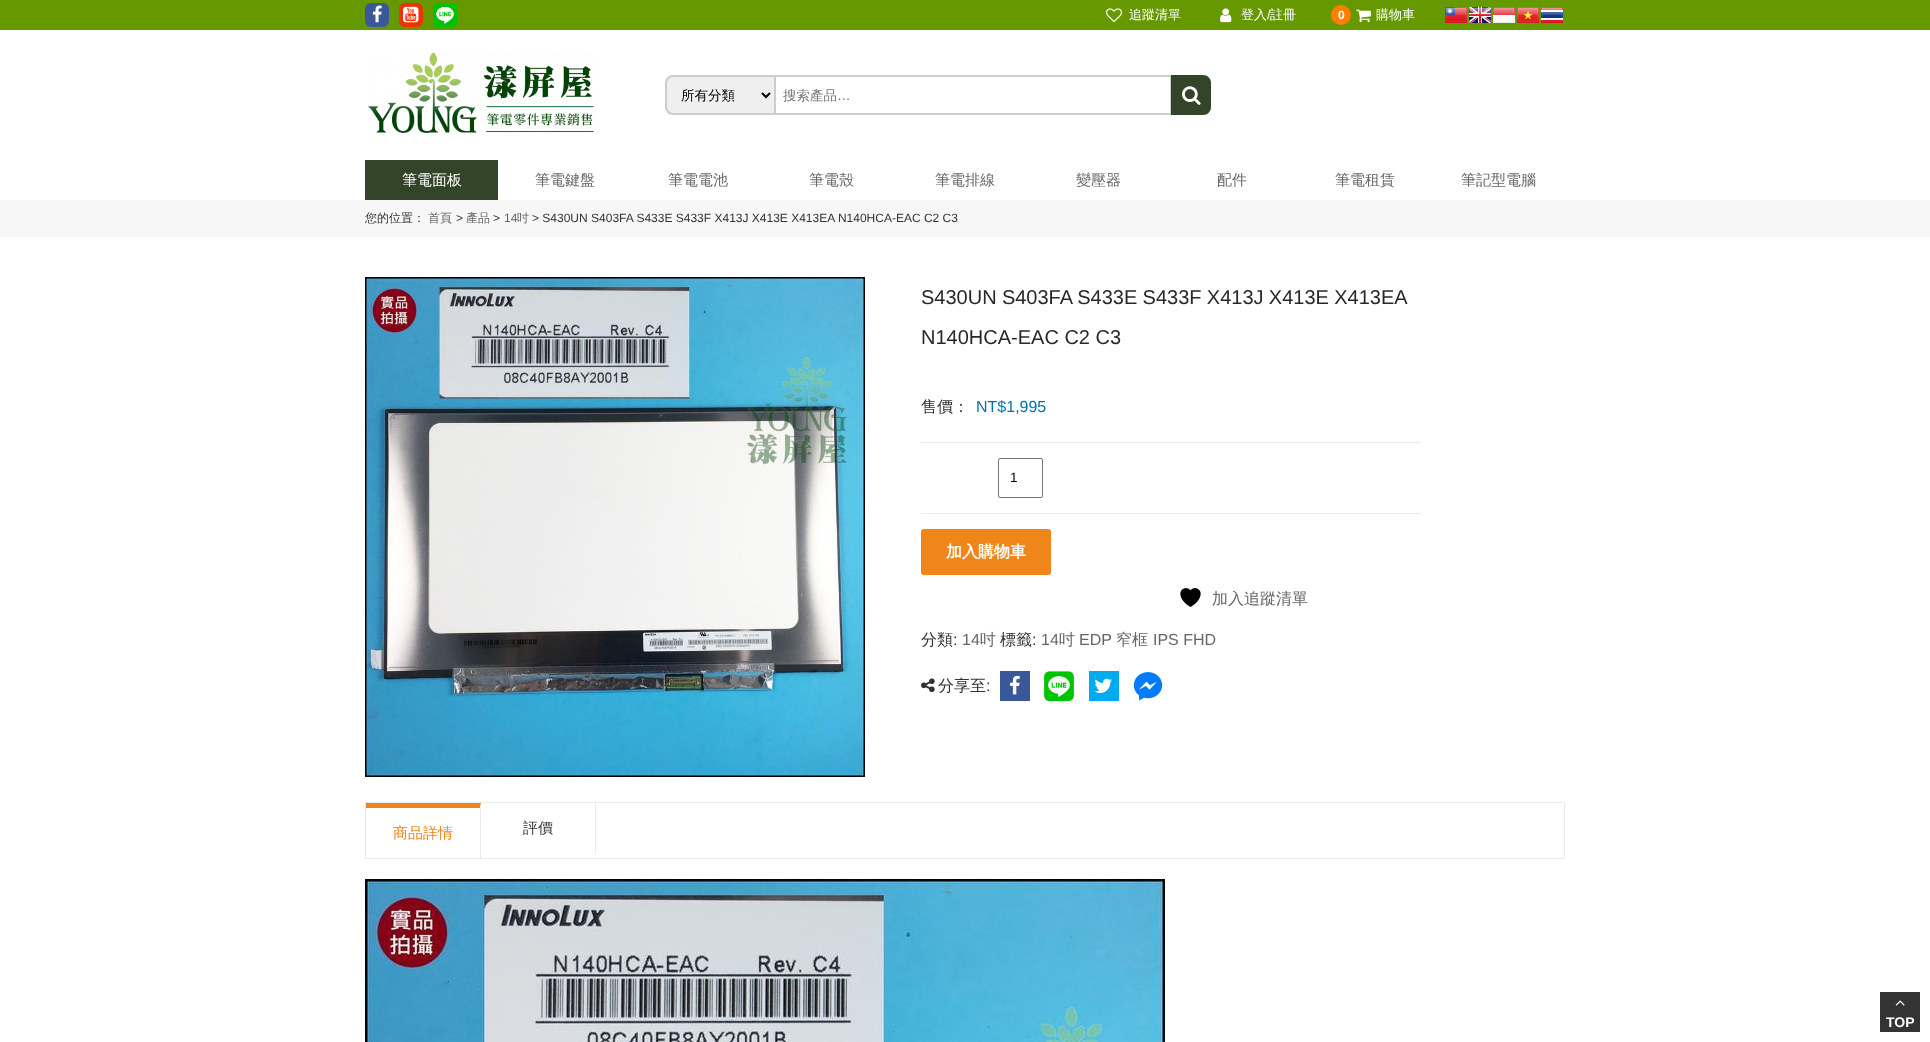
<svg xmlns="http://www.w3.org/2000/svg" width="1930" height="1042">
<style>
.a{font:500 13px WenQuanYi Zen Hei;fill:#fff}
.b{font:13px Liberation Sans;fill:#fff}
.c{font:bold 12px Liberation Sans;fill:#fff}
.d{font:500 13.5px WenQuanYi Zen Hei;fill:#000}
.e{font:500 13.5px WenQuanYi Zen Hei;fill:#757575}
.f{font:13.5px Liberation Sans;fill:#757575}
.g{font:500 15px WenQuanYi Zen Hei;fill:#fff}
.h{font:500 15px WenQuanYi Zen Hei;fill:#666}
.i{font:500 12px WenQuanYi Zen Hei;fill:#333}
.j{font:500 12px WenQuanYi Zen Hei;fill:#666}
.k{font:12px Liberation Sans;fill:#333}
.l{font:12px Liberation Sans;fill:#666}
.m{font:20px Liberation Sans;fill:#282828}
.n{font:500 16px WenQuanYi Zen Hei;fill:#333}
.o{font:16px Liberation Sans;fill:#0073aa}
.p{font:13.5px Liberation Sans;fill:#000}
.q{font:bold 16px WenQuanYi Zen Hei;fill:#fff}
.r{font:500 16px WenQuanYi Zen Hei;fill:#666}
.s{font:16px Liberation Sans;fill:#333}
.t{font:16px Liberation Sans;fill:#666}
.u{font:500 15px WenQuanYi Zen Hei;fill:#f08519}
.v{font:500 15px WenQuanYi Zen Hei;fill:#333}
.w{font:bold 14px Liberation Sans;fill:#fff}
</style>
<rect width="100%" height="100%" fill="#fff"/>
<path fill="#690" d="M0 0h1930v30H0z"/>
<rect fill="#3a579a" x="365" y="3" width="24" height="24" rx="6"/>
<image href="1.png" x="372" y="5" width="10" height="18"/>
<rect fill="#e30" x="399" y="3" width="24" height="24" rx="6"/>
<image href="2.png" x="403" y="6" width="16" height="17"/>
<image href="3.png" x="433" y="3" width="24" height="24"/>
<image href="4.png" x="1106" y="8" width="16" height="15"/>
<image href="5.png" x="1220" y="8" width="12" height="15"/>
<circle fill="#ff8000" cx="1341" cy="15" r="10"/>
<image href="6.png" x="1356" y="9" width="15" height="14"/>
<image href="7.png" x="1445" y="7" width="22" height="16"/>
<image href="8.png" x="1469" y="7" width="22" height="16"/>
<image href="9.png" x="1493" y="7" width="22" height="16"/>
<image href="10.png" x="1517" y="7" width="22" height="16"/>
<image href="11.png" x="1541" y="7" width="22" height="16"/>
<image href="12.png" x="368" y="52" width="226" height="81"/>
<path fill="#efefef" stroke="#ccc" stroke-width="2" d="M673 76h102v38h-102c-4 0-7-3-7-7v-24c0-4 3-7 7-7z"/>
<path fill="none" stroke="#000" stroke-width="2" d="M762 93l4 4l4-4"/>
<path fill="#ccc" d="M776 75h396v2H776z"/>
<path fill="#ccc" d="M1170 75h1v40H1170z"/>
<path fill="#ccc" d="M776 113h396v2H776z"/>
<path fill="#334528" d="M1171 75h32c4.5 0 8 3.5 8 8v24c0 4.5-3.5 8-8 8h-32z"/>
<image href="13.png" x="1182" y="86" width="19" height="19"/>
<path fill="#334528" d="M365 160h133v40H365z"/>
<path fill="#f7f7f7" d="M0 200h1930v37H0z"/>
<image href="14.png" x="365" y="277" width="500" height="500"/>
<path fill="#eaeaea" d="M921 442h500v1H921z"/>
<path fill="#eaeaea" d="M921 513h500v1H921z"/>
<rect fill="none" stroke="#767676" x="998.5" y="458.5" width="44" height="39" rx="1.5"/>
<rect fill="#f08519" x="921" y="529" width="130" height="46" rx="3"/>
<image href="15.png" x="1180" y="588" width="21" height="19"/>
<image href="16.png" x="921" y="678" width="14" height="15"/>
<path fill="#3a579a" d="M1000 671h30v30H1000z"/>
<image href="17.png" x="1010" y="675" width="10" height="20"/>
<image href="18.png" x="1044" y="671" width="30" height="31"/>
<path fill="#00abf0" d="M1089 671h30v30H1089z"/>
<image href="19.png" x="1094" y="678" width="18" height="15"/>
<image href="20.png" x="1133" y="672" width="30" height="29"/>
<path fill="none" stroke="#eaeaea" d="M365.5 802.5h1199v56H365.5z"/>
<path fill="#f08519" d="M366 803h115l-1 5h-114z"/>
<path fill="#eaeaea" d="M481 803v55h-1v-50z"/>
<path fill="#eaeaea" d="M595 803h1v50H595z"/>
<image href="21.png" x="365" y="879" width="800" height="163"/>
<path fill="#333" d="M1880 992h40v40H1880z"/>
<image href="22.png" x="1895" y="1000" width="10" height="6"/>
<text class="a" x="1129" y="19">追蹤清單</text>
<text class="a" x="1241" y="19">登入</text>
<text class="b" x="1267" y="19">/</text>
<text class="a" x="1270" y="19">註冊</text>
<text class="c" x="1338" y="19">0</text>
<text class="a" x="1376" y="19">購物車</text>
<text class="d" x="681" y="100">所有分類</text>
<text class="e" x="783" y="100">搜索產品</text>
<text class="f" x="837" y="100">…</text>
<text class="g" x="402" y="185">筆電面板</text>
<text class="h" x="535" y="185">筆電鍵盤</text>
<text class="h" x="668" y="185">筆電電池</text>
<text class="h" x="809" y="185">筆電殼</text>
<text class="h" x="935" y="185">筆電排線</text>
<text class="h" x="1076" y="185">變壓器</text>
<text class="h" x="1217" y="185">配件</text>
<text class="h" x="1335" y="185">筆電租賃</text>
<text class="h" x="1461" y="185">筆記型電腦</text>
<text class="i" x="365" y="222">您的位置：</text>
<text class="j" x="428" y="222">首頁</text>
<text class="k" x="456" y="222">&gt;</text>
<text class="j" x="466" y="222">產品</text>
<text class="k" x="493" y="222">&gt;</text>
<text class="l" x="504" y="222">14</text>
<text class="j" x="517" y="222">吋</text>
<text class="k" x="532" y="222">&gt; S430UN S403FA S433E S433F X413J X413E X413EA N140HCA-EAC C2 C3</text>
<text class="m" x="921" y="304" word-spacing="-0.25">S430UN S403FA S433E S433F X413J X413E X413EA</text>
<text class="m" x="921" y="344">N140HCA-EAC C2 C3</text>
<text class="n" x="921" y="412">售價：</text>
<text class="o" x="976" y="412">NT$1,995</text>
<text class="p" x="1010" y="482">1</text>
<text class="q" x="946" y="557">加入購物車</text>
<text class="r" x="1212" y="604">加入追蹤清單</text>
<text class="n" x="921" y="645">分類</text>
<text class="s" x="953" y="645">:</text>
<text class="t" x="962" y="645">14</text>
<text class="r" x="980" y="645">吋</text>
<text class="n" x="1000" y="645">標籤</text>
<text class="s" x="1032" y="645">:</text>
<text class="t" x="1041" y="645">14</text>
<text class="r" x="1059" y="645">吋</text>
<text class="t" x="1079" y="645">EDP</text>
<text class="r" x="1116" y="645">窄框</text>
<text class="t" x="1153" y="645">IPS FHD</text>
<text class="n" x="938" y="691">分享至</text>
<text class="s" x="986" y="691">:</text>
<text class="u" x="393" y="838">商品詳情</text>
<text class="v" x="523" y="833">評價</text>
<text class="w" x="1886" y="1027">TOP</text>
</svg>
